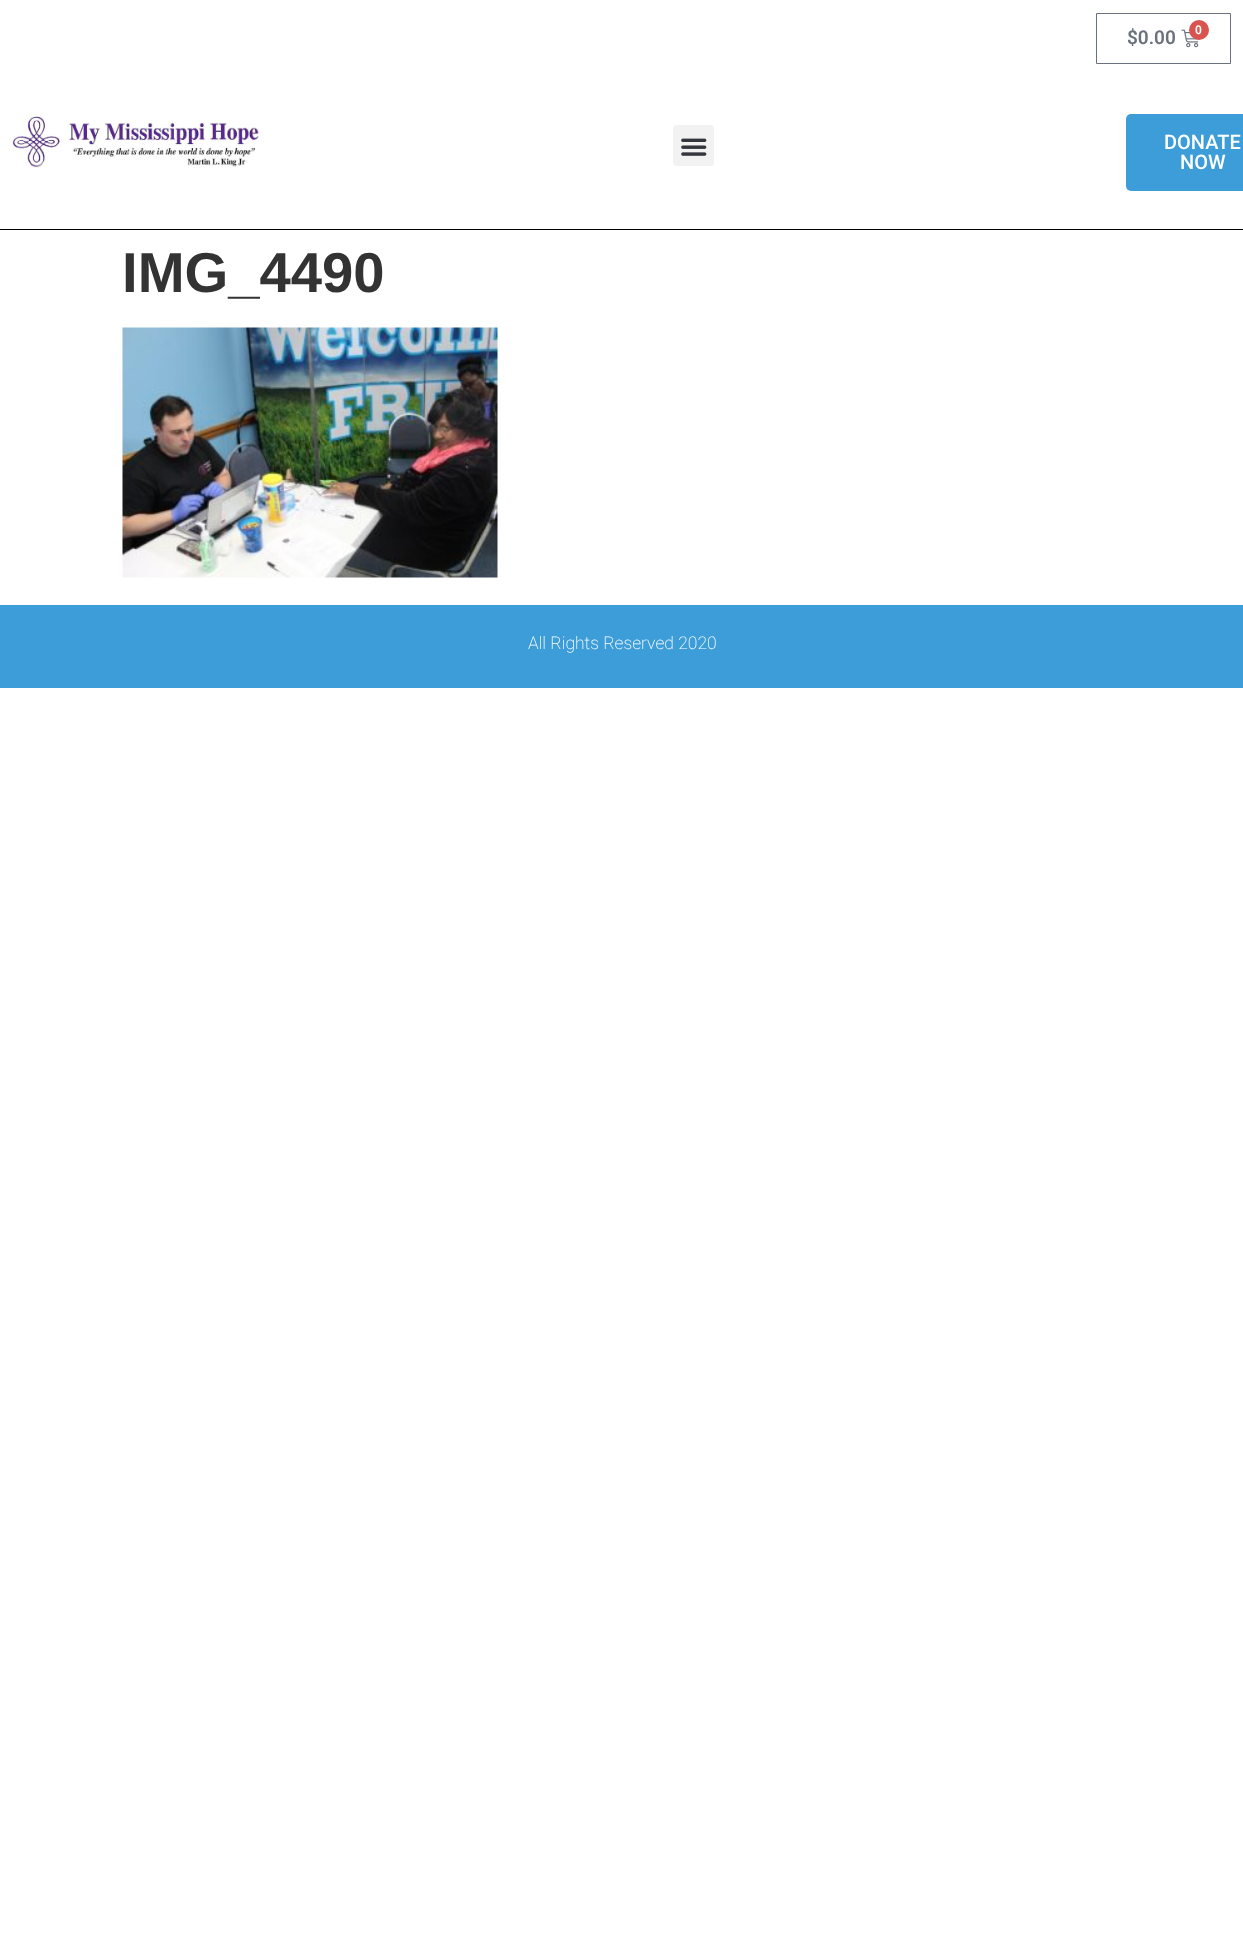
<svg xmlns="http://www.w3.org/2000/svg" width="1243" height="1943">
<style>
.a{font:600 19px Roboto;fill:#69727d}
.b{font:600 12px Roboto;fill:#fff}
.c{font:500 20px Roboto;fill:#fff}
.d{font:bold 56.25px Liberation Sans;fill:#333}
.e{font:200 17.5px Roboto;fill:#fff}
</style>
<rect width="100%" height="100%" fill="#fff"/>
<path fill="none" stroke="#69727d" d="M1096.5 13.5h134v50H1096.5z"/>
<image href="1.png" x="1181" y="29" width="18" height="19"/>
<circle fill="#d9534f" cx="1199" cy="30" r="10"/>
<path fill="#000" d="M0 229h1243v1H0z"/>
<image href="2.png" x="12" y="114" width="247" height="54"/>
<rect fill="#f2f2f2" x="673" y="125" width="41" height="41" rx="4"/>
<image href="3.png" x="681" y="138" width="26" height="18"/>
<rect fill="#3d9dd9" x="1126" y="114" width="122" height="77" rx="5"/>
<image href="4.png" x="122" y="327" width="376" height="251"/>
<path fill="#3d9dd9" d="M0 605h1243v83H0z"/>
<text class="a" x="1127" y="44">$0.00</text>
<text class="b" x="1195" y="34">0</text>
<text class="c" x="1164" y="149">DONATE</text>
<text class="c" x="1180" y="169">NOW</text>
<text class="d" x="122" y="292">IMG_4490</text>
<text class="e" x="528" y="649">All Rights Reserved 2020</text>
</svg>
